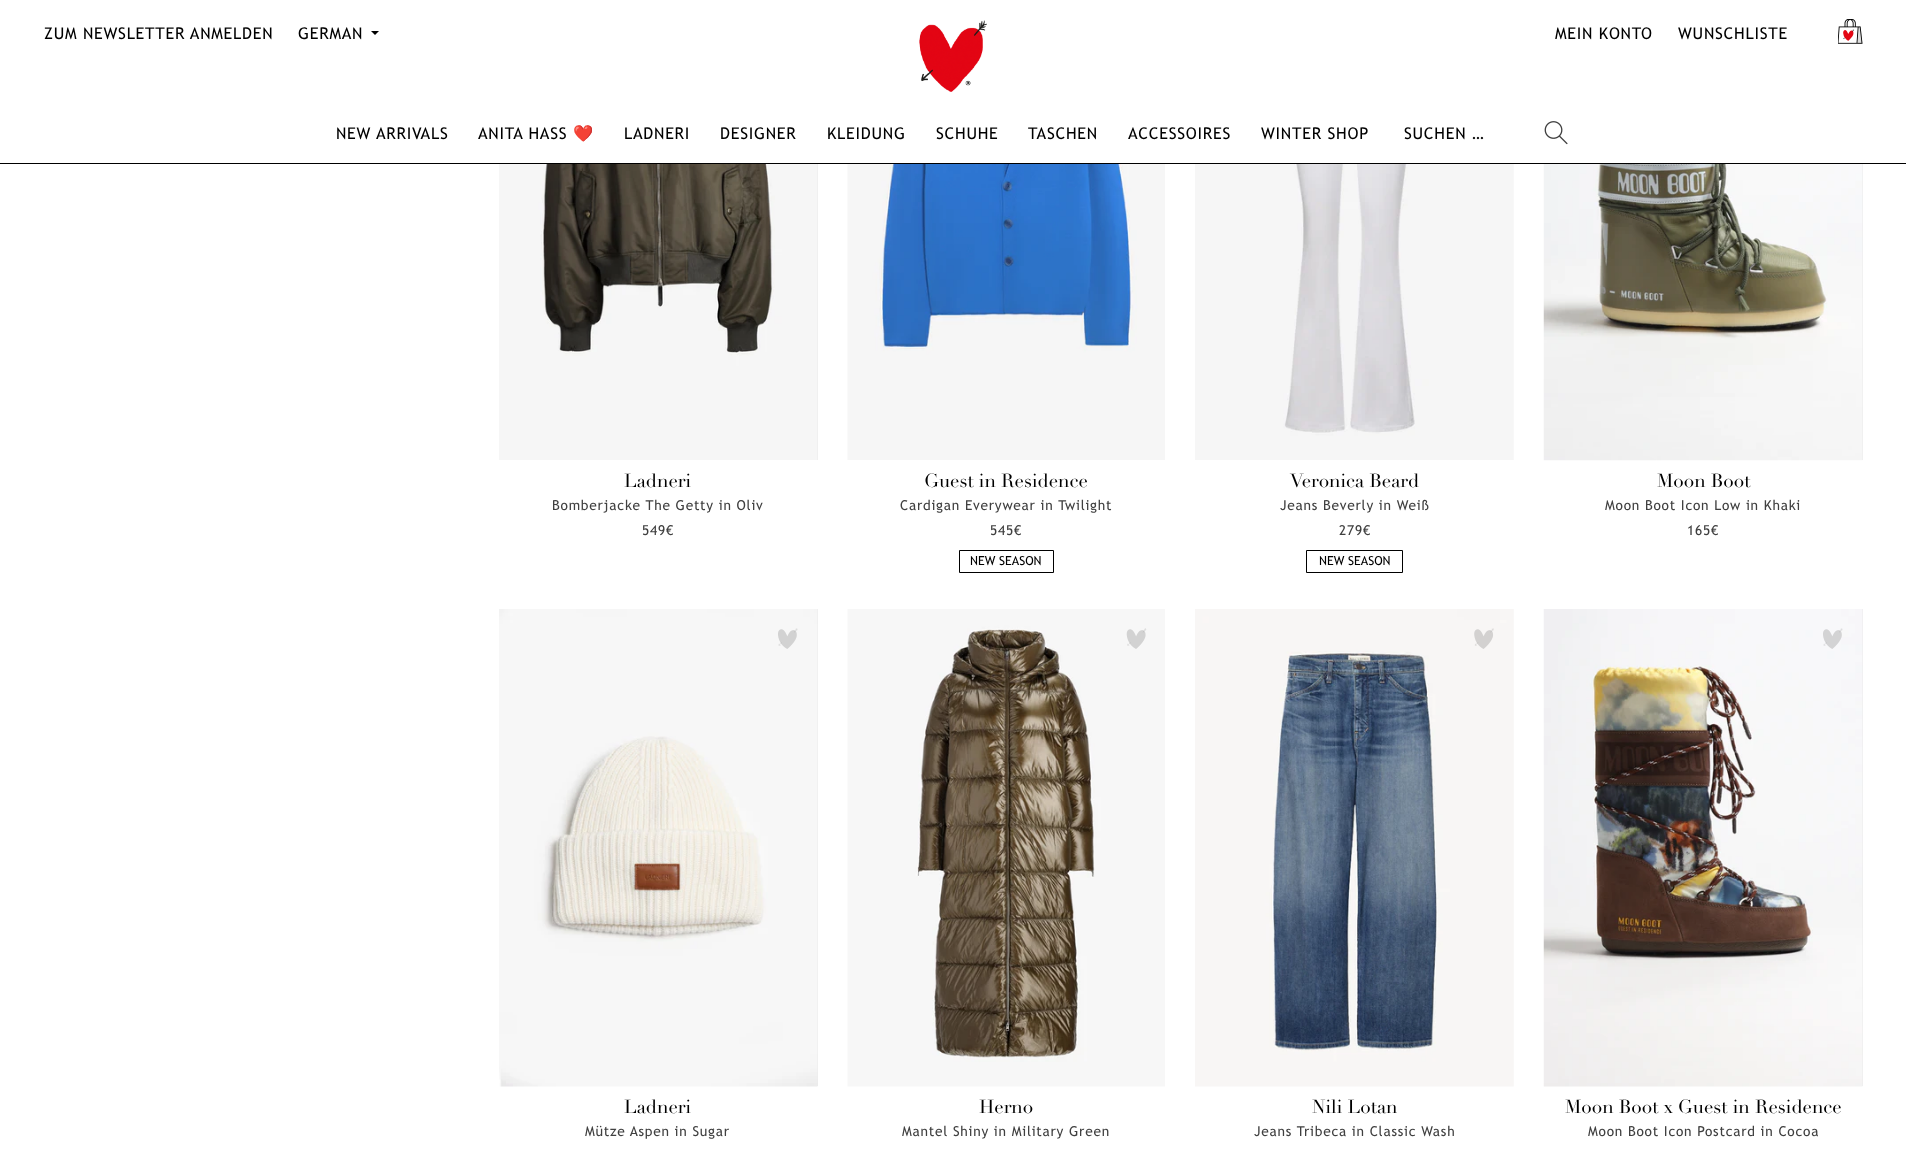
<svg xmlns="http://www.w3.org/2000/svg" width="1906" height="1156">
<style>
.a{font:16.25px Trebuchet MS;letter-spacing:0.75px;fill:#000}
.b{font:16.25px Noto Color Emoji;letter-spacing:0.75px;fill:#000}
.c{font:18.75px Didot;fill:#000}
.d{font:13.75px Trebuchet MS;letter-spacing:0.75px;fill:#404040}
.e{font:12.5px Trebuchet MS;fill:#000}
</style>
<rect width="100%" height="100%" fill="#fff"/>
<path fill="#000" d="M0 163h1906v1H0z"/>
<path fill="#000" d="M371 31h8l-4 4z"/>
<image href="1.png" x="919" y="20" width="68" height="72"/>
<image href="2.png" x="1838" y="19" width="25" height="25"/>
<image href="3.png" x="1544" y="121" width="24" height="24"/>
<path fill="#eaeaea" d="M817 164h1v296H817z"/>
<image href="4.png" x="499" y="164" width="319" height="296"/>
<image href="5.png" x="847" y="164" width="318" height="296"/>
<path fill="none" stroke="#000" d="M959.5 550.5h94v22H959.5z"/>
<image href="6.png" x="1195" y="164" width="319" height="296"/>
<path fill="none" stroke="#000" d="M1306.5 550.5h96v22H1306.5z"/>
<path fill="#eaeaea" d="M1862 164h1v296H1862z"/>
<image href="7.png" x="1543" y="164" width="320" height="297"/>
<path fill="#eaeaea" d="M817 609h1v477H817z"/>
<image href="8.png" x="499" y="609" width="319" height="478"/>
<image href="9.png" x="778" y="628" width="20" height="21"/>
<image href="10.png" x="847" y="609" width="318" height="478"/>
<image href="11.png" x="1126" y="628" width="21" height="21"/>
<image href="12.png" x="1195" y="609" width="319" height="478"/>
<image href="13.png" x="1474" y="628" width="20" height="21"/>
<path fill="#eaeaea" d="M1862 609h1v477H1862z"/>
<image href="14.png" x="1543" y="609" width="320" height="478"/>
<image href="15.png" x="1823" y="628" width="20" height="21"/>
<text class="a" x="44" y="39">ZUM NEWSLETTER ANMELDEN</text>
<text class="a" x="298" y="39">GERMAN</text>
<text class="a" x="1555" y="39">MEIN KONTO</text>
<text class="a" x="1678" y="39">WUNSCHLISTE</text>
<text class="a" x="336" y="139">NEW ARRIVALS</text>
<text class="a" x="478" y="139">ANITA HASS</text>
<text class="b" x="573" y="139">❤️</text>
<text class="a" x="624" y="139">LADNERI</text>
<text class="a" x="720" y="139">DESIGNER</text>
<text class="a" x="827" y="139">KLEIDUNG</text>
<text class="a" x="936" y="139">SCHUHE</text>
<text class="a" x="1028" y="139">TASCHEN</text>
<text class="a" x="1128" y="139">ACCESSOIRES</text>
<text class="a" x="1261" y="139">WINTER SHOP</text>
<text class="a" x="1404" y="139">SUCHEN …</text>
<text class="c" x="624" y="487">Ladneri</text>
<text class="d" x="552" y="510">Bomberjacke The Getty in Oliv</text>
<text class="d" x="642" y="535">549€</text>
<text class="c" x="924" y="487">Guest in Residence</text>
<text class="d" x="900" y="510">Cardigan Everywear in Twilight</text>
<text class="d" x="990" y="535">545€</text>
<text class="e" x="970" y="565">NEW SEASON</text>
<text class="c" x="1290" y="487">Veronica Beard</text>
<text class="d" x="1280" y="510">Jeans Beverly in Weiß</text>
<text class="d" x="1339" y="535">279€</text>
<text class="e" x="1319" y="565">NEW SEASON</text>
<text class="c" x="1657" y="487">Moon Boot</text>
<text class="d" x="1605" y="510">Moon Boot Icon Low in Khaki</text>
<text class="d" x="1687" y="535">165€</text>
<text class="c" x="624" y="1113">Ladneri</text>
<text class="d" x="585" y="1136">Mütze Aspen in Sugar</text>
<text class="c" x="979" y="1113">Herno</text>
<text class="d" x="902" y="1136">Mantel Shiny in Military Green</text>
<text class="c" x="1312" y="1113">Nili Lotan</text>
<text class="d" x="1254" y="1136">Jeans Tribeca in Classic Wash</text>
<text class="c" x="1565" y="1113">Moon Boot x Guest in Residence</text>
<text class="d" x="1588" y="1136">Moon Boot Icon Postcard in Cocoa</text>
</svg>
